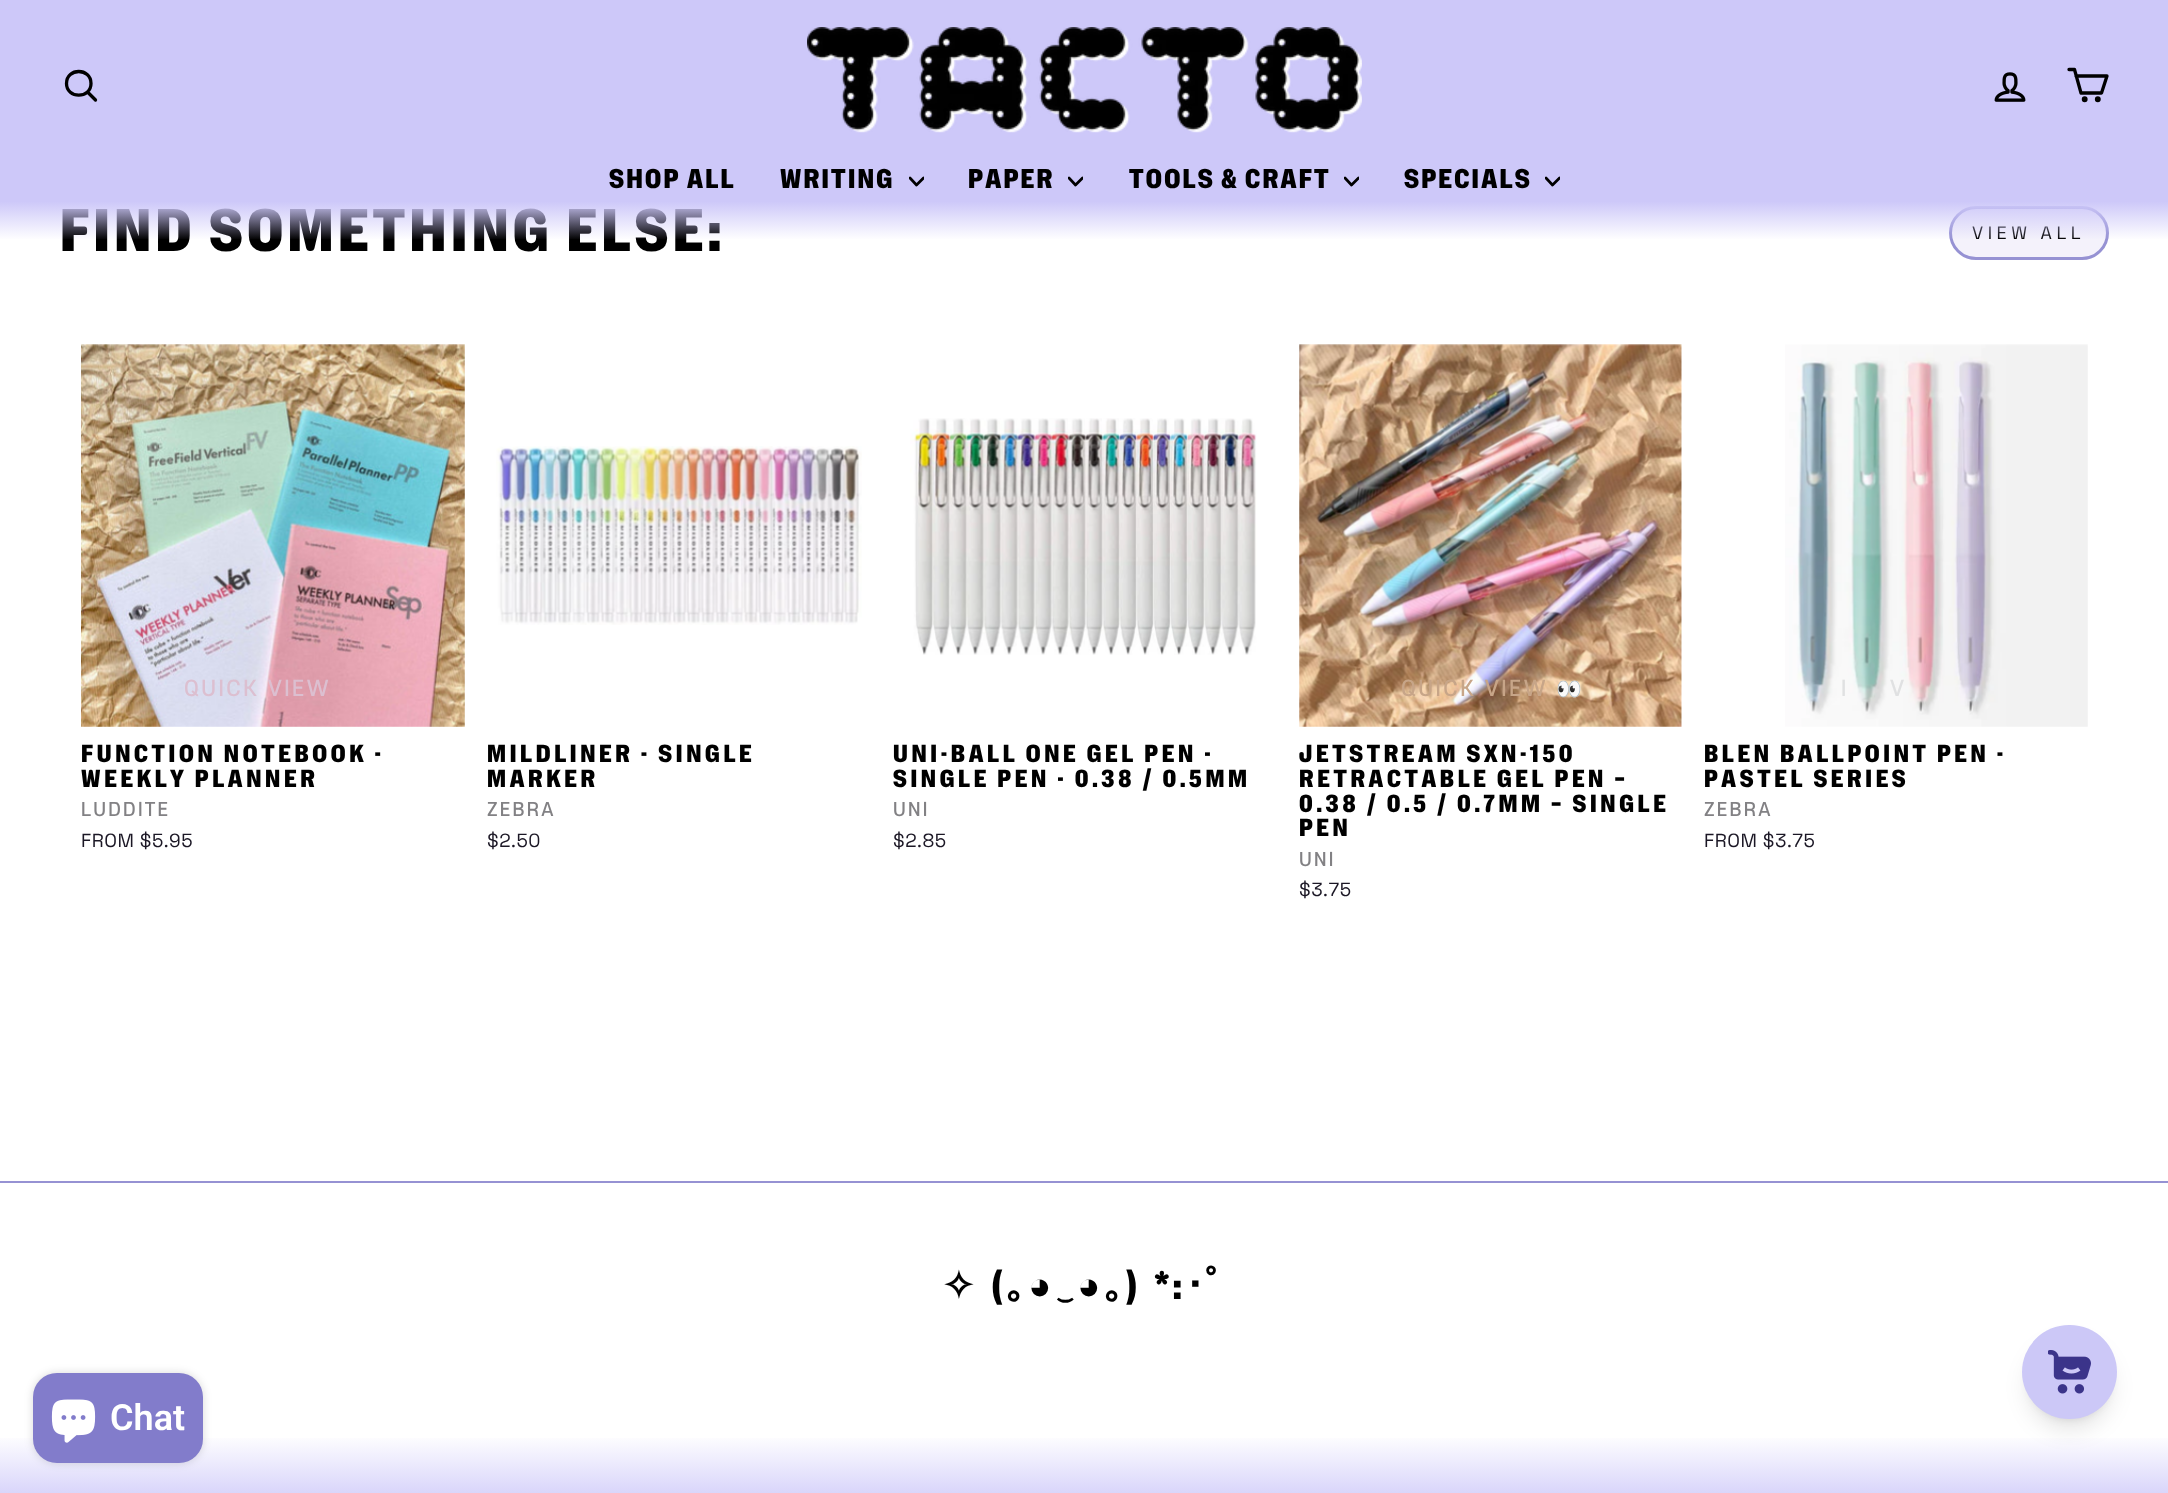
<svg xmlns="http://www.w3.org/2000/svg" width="2168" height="1493">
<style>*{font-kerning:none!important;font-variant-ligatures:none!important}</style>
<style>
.a{font:900 60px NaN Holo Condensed;letter-spacing:4.5px;fill:#000}
.b{font:18px Space Grotesk;letter-spacing:4.5px;fill:#000}
.c{font:900 27px NaN Holo Condensed;letter-spacing:2.25px;fill:#000}
.d{font:500 20.75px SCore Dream;letter-spacing:2.5px;fill:#dcbfd0}
.e{font:900 24.75px NaN Holo Condensed;letter-spacing:3.7px;fill:#000}
.f{font:500 18px SCore Dream;letter-spacing:2.25px;fill:#828184}
.g{font:19px Space Grotesk;letter-spacing:0.5px;fill:#1b1725}
.h{font:500 20.75px SCore Dream;letter-spacing:2.5px;fill:#c7a588}
.i{font:20.75px Noto Color Emoji;letter-spacing:2.5px;fill:#debb94}
.j{font:500 20.75px SCore Dream;letter-spacing:2.5px;fill:#e0e1e2}
.k{font:bold 39px DejaVu Sans;letter-spacing:3px;fill:#000}
.l{font:900 39px NaN Holo Condensed;letter-spacing:3px;fill:#000}
.m{font:bold 39px IPAGothic;letter-spacing:3px;fill:#000}
.n{font:bold 39px Liberation Sans;letter-spacing:3px;fill:#000}
.o{font:600 36px Roboto;fill:#fff}
</style>
<defs>
<linearGradient id="g1" gradientUnits="userSpaceOnUse" x1="1085" y1="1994" x2="1085" y2="1434"><stop offset="0.86" stop-color="#cdc8f9"/><stop offset="1" stop-color="#fff"/></linearGradient>
<linearGradient id="g2" gradientUnits="userSpaceOnUse" x1="1085" y1="240" x2="1085" y2="0"><stop offset="0" stop-color="#cdc8f9" stop-opacity="0"/><stop offset="0.16" stop-color="#cdc8f9"/></linearGradient>
<clipPath id="clip1"><path d="M1545 174h15v15H1545z"/></clipPath>
<clipPath id="clip2"><path d="M1344 174h15v15H1344z"/></clipPath>
<clipPath id="clip3"><path d="M1068 174h15v15H1068z"/></clipPath>
<clipPath id="clip4"><path d="M909 174h15v15H909z"/></clipPath>
</defs>
<rect width="100%" height="100%" fill="#fff"/>
<rect fill="#f4f2fb" stroke="#9692d3" stroke-width="3" x="1950.5" y="207.5" width="157" height="51" rx="25.5"/>
<image href="3.png" x="81" y="344" width="384" height="383"/>
<image href="4.png" x="496" y="446" width="366" height="179"/>
<image href="5.png" x="910" y="418" width="347" height="237"/>
<image href="6.png" x="1299" y="344" width="383" height="383"/>
<image href="7.png" x="1785" y="344" width="303" height="383"/>
<path fill="#9692d3" d="M0 1181h2168v2H0z"/>
<path fill="url(#g1)" d="M0 1438h2168v55H0z"/>
<rect fill="#00000026" filter="blur(4px)" x="33" y="1373" width="170" height="90" rx="24"/>
<rect fill="#827ccb" x="33" y="1373" width="170" height="90" rx="24"/>
<image href="8.png" x="51" y="1399" width="45" height="44"/>
<rect fill="#0000001a" filter="blur(4.5px)" x="2028" y="1337" width="83" height="82" rx="41"/>
<rect fill="#0000001a" filter="blur(11px)" x="2027" y="1344" width="85" height="86" rx="42.5"/>
<rect fill="#ccc8f7" x="2022" y="1325" width="95" height="94" rx="47"/>
<image href="9.png" x="2048" y="1350" width="43" height="44"/>
<text class="a" x="60" y="251">FIND SOMETHING ELSE:</text>
<text class="b" x="1972" y="239">VIEW ALL</text>
<path fill="url(#g2)" d="M0 0h2168v239H0z"/>
<g clip-path="url(#clip1)">
<path fill="none" stroke="#000" stroke-width="2.7" stroke-linecap="round" stroke-linejoin="round" d="M1546 178l6.5 7l7-7"/>
</g>
<text class="c" x="1404" y="188">SPECIALS</text>
<image href="1.png" x="807" y="27" width="555" height="106"/>
<g clip-path="url(#clip2)">
<path fill="none" stroke="#000" stroke-width="2.7" stroke-linecap="round" stroke-linejoin="round" d="M1345 178l6.5 7l7-7"/>
</g>
<text class="c" x="1129" y="188">TOOLS &amp; CRAFT</text>
<g clip-path="url(#clip3)">
<path fill="none" stroke="#000" stroke-width="2.7" stroke-linecap="round" stroke-linejoin="round" d="M1069 178l6.5 7l7-7"/>
</g>
<text class="c" x="968" y="188">PAPER</text>
<g clip-path="url(#clip4)">
<path fill="none" stroke="#000" stroke-width="2.7" stroke-linecap="round" stroke-linejoin="round" d="M910 178l6.5 7l7-7"/>
</g>
<text class="c" x="780" y="188">WRITING</text>
<text class="c" x="609" y="188">SHOP ALL</text>
<circle fill="#000" stroke="#000" stroke-width="3.3" cx="2097.8" cy="99.3" r="1.3"/>
<circle fill="#000" stroke="#000" stroke-width="3.3" cx="2084.7" cy="99.3" r="1.3"/>
<path fill="none" stroke="#000" stroke-width="3.3" stroke-linecap="round" stroke-linejoin="round" d="M2076 76h31l-5.5 17h-20.5l-6.5-23.5h-5.5"/>
<image href="2.png" x="1994" y="72" width="32" height="30"/>
<path fill="none" stroke="#000" stroke-width="3.3" stroke-linecap="round" stroke-linejoin="round" d="M91 83.5c0 15.5-24.5 15.5-24.5 0c0-16 24.5-16 24.5 0zm4.5 16.5l-8-8"/>
<text class="d" x="184" y="696">QUICK VIEW</text>
<text class="e" x="81" y="762">FUNCTION NOTEBOOK -</text>
<text class="e" x="81" y="787">WEEKLY PLANNER</text>
<text class="f" x="81" y="816">LUDDITE</text>
<text class="g" x="81" y="847">FROM $5.95</text>
<text class="e" x="487" y="762">MILDLINER - SINGLE</text>
<text class="e" x="487" y="787">MARKER</text>
<text class="f" x="487" y="816">ZEBRA</text>
<text class="g" x="487" y="847">$2.50</text>
<text class="e" x="893" y="762">UNI-BALL ONE GEL PEN -</text>
<text class="e" x="893" y="787">SINGLE PEN - 0.38 / 0.5MM</text>
<text class="f" x="893" y="816">UNI</text>
<text class="g" x="893" y="847">$2.85</text>
<text class="h" x="1401" y="696">QUICK VIEW</text>
<text class="i" x="1556" y="696">👀</text>
<text class="e" x="1299" y="762">JETSTREAM SXN-150</text>
<text class="e" x="1299" y="787">RETRACTABLE GEL PEN –</text>
<text class="e" x="1299" y="812">0.38 / 0.5 / 0.7MM – SINGLE</text>
<text class="e" x="1299" y="836">PEN</text>
<text class="f" x="1299" y="866">UNI</text>
<text class="g" x="1299" y="896">$3.75</text>
<text class="j" x="1841" y="696">I</text>
<text class="j" x="1890" y="696">V</text>
<text class="e" x="1704" y="762">BLEN BALLPOINT PEN -</text>
<text class="e" x="1704" y="787">PASTEL SERIES</text>
<text class="f" x="1704" y="816">ZEBRA</text>
<text class="g" x="1704" y="847">FROM $3.75</text>
<text class="k" x="942" y="1299">✧</text>
<text class="l" x="992" y="1299">(</text>
<text class="m" x="1006" y="1299">｡</text>
<text class="n" x="1028" y="1299">◕</text>
<text class="m" x="1055" y="1299">‿</text>
<text class="n" x="1077" y="1299">◕</text>
<text class="m" x="1104" y="1299">｡</text>
<text class="l" x="1126" y="1299">)</text>
<text class="l" x="1154" y="1299">*:</text>
<text class="m" x="1185" y="1299">･ﾟ</text>
<text class="o" x="110" y="1430">Chat</text>
</svg>
